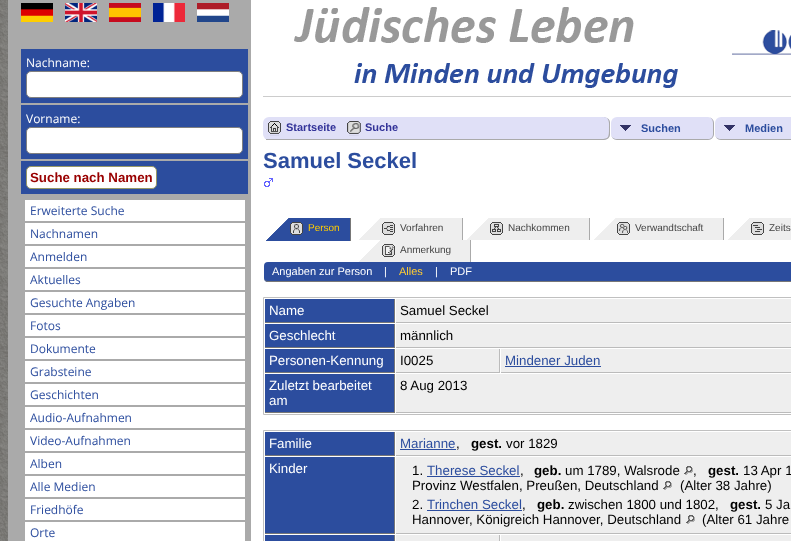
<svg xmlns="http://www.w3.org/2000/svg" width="791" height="541">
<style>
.a{font:12px Open Sans;fill:#fff}
.b{font:bold 13.3px Liberation Sans;fill:#900}
.c{font:12px Open Sans;fill:#2c4d9e}
.d{font:bold 11px Liberation Sans;fill:#339}
.e{font:bold 11px Liberation Sans;fill:#2c4d9e}
.f{font:bold 22px Liberation Sans;fill:#2c4d9e}
.g{font:10px Liberation Sans;fill:#fc0}
.h{font:10px Liberation Sans;fill:#444}
.i{font:11px Liberation Sans;fill:#fff}
.j{font:11px Liberation Sans;fill:#fc3}
.k{font:13.3px Liberation Sans;fill:#fff}
.l{font:13.3px Liberation Sans;fill:#000}
.m{font:13.3px Liberation Sans;fill:#2c4d9e}
.n{font:bold 13.3px Liberation Sans;fill:#000}
</style>
<rect width="100%" height="100%" fill="#fff"/>
<image href="1.png" x="0" y="0" width="8" height="541"/>
<path fill="#aaa" d="M8 0h243v541H8z"/>
<image href="2.png" x="21" y="3" width="32" height="19"/>
<image href="3.png" x="65" y="3" width="32" height="19"/>
<image href="4.png" x="109" y="3" width="32" height="19"/>
<image href="5.png" x="153" y="3" width="32" height="19"/>
<image href="6.png" x="197" y="3" width="32" height="19"/>
<path fill="#2c4d9e" d="M21 49h227v54H21z"/>
<rect fill="#fff" stroke="#808080" x="26.5" y="71.5" width="216" height="26" rx="4.5"/>
<path fill="#2c4d9e" d="M21 105h227v54H21z"/>
<rect fill="#fff" stroke="#808080" x="26.5" y="127.5" width="216" height="26" rx="4.5"/>
<path fill="#2c4d9e" d="M21 161h227v33H21z"/>
<rect fill="#fff" stroke="#996" x="26.5" y="166.5" width="130" height="22" rx="4.5"/>
<path fill="#fff" d="M25 200h220v21H25z"/>
<path fill="#fff" d="M25 223h220v21H25z"/>
<path fill="#fff" d="M25 246h220v21H25z"/>
<path fill="#fff" d="M25 269h220v21H25z"/>
<path fill="#fff" d="M25 292h220v21H25z"/>
<path fill="#fff" d="M25 315h220v21H25z"/>
<path fill="#fff" d="M25 338h220v21H25z"/>
<path fill="#fff" d="M25 361h220v21H25z"/>
<path fill="#fff" d="M25 384h220v21H25z"/>
<path fill="#fff" d="M25 407h220v21H25z"/>
<path fill="#fff" d="M25 430h220v21H25z"/>
<path fill="#fff" d="M25 453h220v21H25z"/>
<path fill="#fff" d="M25 476h220v21H25z"/>
<path fill="#fff" d="M25 499h220v21H25z"/>
<path fill="#fff" d="M25 522h220v19H25z"/>
<image href="7.png" x="294" y="7" width="384" height="81"/>
<image href="8.png" x="732" y="30" width="59" height="25"/>
<path fill="#ccc" d="M263 96h528v1H263z"/>
<rect fill="#e0e0f7" x="263" y="117" width="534" height="23" rx="6"/>
<path fill="#aaa" d="M266 139h333v1H266z"/>
<image href="9.png" x="268" y="121" width="13" height="15"/>
<image href="10.png" x="347" y="121" width="14" height="15"/>
<path fill="#fff" d="M604 117h117v23H604z"/>
<path fill="#e0e0f7" d="M599 117h5c3.5 0 6 2.5 6 6v11c0 3.5-2.5 6-6 6h-5z"/>
<path fill="#aaa" fill-rule="evenodd" d="M599 117c4 0 10-.5 11 5v13c-1 5.5-7 5-11 5zm0 0h6c5 1.5 4 8 4 11.5c0 10-.5 10.5-10 10.5z"/>
<rect fill="#e0e0f7" x="611" y="117" width="103" height="23" rx="6"/>
<image href="11.png" x="620" y="125" width="11" height="6"/>
<path fill="#aaa" fill-rule="evenodd" d="M617 117h91c3 0 6 3 6 6v11c0 3-3 6-6 6h-91c-3 0-6-3-6-6v-11c0-3 3-6 6-6zm0 0h91c3 0 5 3 5 6v11c0 3-2 5-5 5h-91c-3 0-6-2-6-5v-11c0-3 3-6 6-6z"/>
<rect fill="#e0e0f7" x="715" y="117" width="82" height="23" rx="6"/>
<image href="11.png" x="724" y="125" width="11" height="6"/>
<path fill="#aaa" fill-rule="evenodd" d="M721 117h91c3 0 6 3 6 6v11c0 3-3 6-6 6h-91c-3 0-6-3-6-6v-11c0-3 3-6 6-6zm0 0h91c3 0 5 3 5 6v11c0 3-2 5-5 5h-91c-3 0-6-2-6-5v-11c0-3 3-6 6-6z"/>
<image href="12.png" x="264" y="178" width="9" height="9"/>
<image href="13.png" x="266" y="218" width="84" height="23"/>
<path fill="#777" d="M350 218h1v23H350z"/>
<image href="14.png" x="290" y="222" width="13" height="13"/>
<image href="15.png" x="359" y="218" width="103" height="22"/>
<path fill="#aaa" d="M462 218h1v22H462z"/>
<image href="16.png" x="382" y="222" width="13" height="13"/>
<image href="17.png" x="467" y="218" width="122" height="22"/>
<path fill="#aaa" d="M589 218h1v22H589z"/>
<image href="18.png" x="490" y="222" width="13" height="13"/>
<image href="19.png" x="594" y="218" width="129" height="22"/>
<path fill="#aaa" d="M723 218h1v22H723z"/>
<image href="20.png" x="617" y="222" width="13" height="13"/>
<image href="21.png" x="728" y="218" width="63" height="22"/>
<image href="22.png" x="751" y="222" width="13" height="13"/>
<image href="23.png" x="359" y="240" width="111" height="22"/>
<path fill="#aaa" d="M470 240h1v22H470z"/>
<image href="24.png" x="382" y="244" width="13" height="13"/>
<rect fill="#2c4d9e" x="264" y="262" width="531" height="20" rx="4"/>
<path fill="#777" fill-rule="evenodd" d="M268 262h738c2 0 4 2 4 4v12c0 2-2 4-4 4h-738c-2 0-4-2-4-4v-12c0-2 2-4 4-4zm0 0h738c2 0 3 2 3 4v12c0 2-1 3-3 3h-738c-2 0-4-1-4-3v-12c0-2 2-4 4-4z"/>
<path fill="none" stroke="#c0c0c0" d="M263.5 297.5h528v117H263.5z"/>
<path fill="#2c4d9e" d="M265 299h129v23H265z"/>
<path fill="#777" d="M394 299h1v24H394z"/>
<path fill="#777" d="M265 322h130v1H265z"/>
<path fill="#eee" d="M396 299h395v23H396z"/>
<path fill="#bbb" d="M396 322h395v1H396z"/>
<path fill="#2c4d9e" d="M265 324h129v23H265z"/>
<path fill="#777" d="M394 324h1v24H394z"/>
<path fill="#777" d="M265 347h130v1H265z"/>
<path fill="#eee" d="M396 324h395v23H396z"/>
<path fill="#bbb" d="M396 347h395v1H396z"/>
<path fill="#2c4d9e" d="M265 349h129v23H265z"/>
<path fill="#777" d="M394 349h1v24H394z"/>
<path fill="#777" d="M265 372h130v1H265z"/>
<path fill="#eee" d="M396 349h103v23H396z"/>
<path fill="#bbb" d="M499 349h1v24H499z"/>
<path fill="#bbb" d="M396 372h104v1H396z"/>
<path fill="#eee" d="M501 349h290v23H501z"/>
<path fill="#bbb" d="M501 372h290v1H501z"/>
<path fill="#2c4d9e" d="M505 366h96v1H505z"/>
<path fill="#2c4d9e" d="M265 374h129v38H265z"/>
<path fill="#777" d="M394 374h1v39H394z"/>
<path fill="#777" d="M265 412h130v1H265z"/>
<path fill="#eee" d="M396 374h395v38H396z"/>
<path fill="#bbb" d="M396 412h395v1H396z"/>
<path fill="none" stroke="#c0c0c0" d="M263.5 430.5h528v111H263.5z"/>
<path fill="#2c4d9e" d="M265 432h129v23H265z"/>
<path fill="#777" d="M394 432h1v24H394z"/>
<path fill="#777" d="M265 455h130v1H265z"/>
<path fill="#eee" d="M396 432h395v23H396z"/>
<path fill="#bbb" d="M396 455h395v1H396z"/>
<path fill="#2c4d9e" d="M400 449h56v1H400z"/>
<path fill="#2c4d9e" d="M265 457h129v76H265z"/>
<path fill="#777" d="M394 457h1v77H394z"/>
<path fill="#777" d="M265 533h130v1H265z"/>
<path fill="#eee" d="M396 457h395v76H396z"/>
<path fill="#bbb" d="M396 533h395v1H396z"/>
<path fill="#2c4d9e" d="M427 476h93v1H427z"/>
<image href="25.png" x="684" y="466" width="9" height="9"/>
<image href="25.png" x="663" y="481" width="9" height="9"/>
<path fill="#2c4d9e" d="M427 510h95v1H427z"/>
<image href="25.png" x="686" y="515" width="9" height="9"/>
<path fill="#2c4d9e" d="M265 535h130v6H265z"/>
<path fill="#777" d="M394 535h1v6H394z"/>
<path fill="#eee" d="M396 535h104v6H396z"/>
<path fill="#bbb" d="M499 535h1v6H499z"/>
<path fill="#eee" d="M501 535h290v6H501z"/>
<text class="a" x="26" y="67">Nachname:</text>
<text class="a" x="26" y="123">Vorname:</text>
<text class="b" x="30" y="182">Suche nach Namen</text>
<text class="c" x="30" y="215">Erweiterte Suche</text>
<text class="c" x="30" y="238">Nachnamen</text>
<text class="c" x="30" y="261">Anmelden</text>
<text class="c" x="30" y="284">Aktuelles</text>
<text class="c" x="30" y="307">Gesuchte Angaben</text>
<text class="c" x="30" y="330">Fotos</text>
<text class="c" x="30" y="353">Dokumente</text>
<text class="c" x="30" y="376">Grabsteine</text>
<text class="c" x="30" y="399">Geschichten</text>
<text class="c" x="30" y="422">Audio-Aufnahmen</text>
<text class="c" x="30" y="445">Video-Aufnahmen</text>
<text class="c" x="30" y="468">Alben</text>
<text class="c" x="30" y="491">Alle Medien</text>
<text class="c" x="30" y="514">Friedhöfe</text>
<text class="c" x="30" y="537">Orte</text>
<text class="d" x="286" y="131">Startseite</text>
<text class="d" x="365" y="131">Suche</text>
<text class="e" x="641" y="132">Suchen</text>
<text class="e" x="745" y="132">Medien</text>
<text class="f" x="263" y="168">Samuel Seckel</text>
<text class="g" x="308" y="231">Person</text>
<text class="h" x="400" y="231">Vorfahren</text>
<text class="h" x="508" y="231">Nachkommen</text>
<text class="h" x="635" y="231">Verwandtschaft</text>
<text class="h" x="769" y="231">Zeits</text>
<text class="h" x="400" y="253">Anmerkung</text>
<text class="i" x="272" y="275">Angaben zur Person</text>
<text class="i" x="384" y="275">|</text>
<text class="j" x="399" y="275">Alles</text>
<text class="i" x="435" y="275">|</text>
<text class="i" x="450" y="275">PDF</text>
<text class="k" x="269" y="315">Name</text>
<text class="l" x="400" y="315">Samuel Seckel</text>
<text class="k" x="269" y="340">Geschlecht</text>
<text class="l" x="400" y="340">männlich</text>
<text class="k" x="269" y="365">Personen-Kennung</text>
<text class="l" x="400" y="365">I0025</text>
<text class="m" x="505" y="365">Mindener Juden</text>
<text class="k" x="269" y="390">Zuletzt bearbeitet</text>
<text class="k" x="269" y="405">am</text>
<text class="l" x="400" y="390">8 Aug 2013</text>
<text class="k" x="269" y="448">Familie</text>
<text class="m" x="400" y="448">Marianne</text>
<text class="l" x="456" y="448">,</text>
<text class="n" x="471" y="448">gest.</text>
<text class="l" x="506" y="448">vor 1829</text>
<text class="k" x="269" y="473">Kinder</text>
<text class="l" x="412" y="475">1.</text>
<text class="m" x="427" y="475">Therese Seckel</text>
<text class="l" x="520" y="475">,</text>
<text class="n" x="534" y="475">geb.</text>
<text class="l" x="565" y="475">um 1789, Walsrode</text>
<text class="l" x="693" y="475">,</text>
<text class="n" x="708" y="475">gest.</text>
<text class="l" x="743" y="475">13 Apr 1</text>
<text class="l" x="412" y="490">Provinz Westfalen, Preußen, Deutschland</text>
<text class="l" x="680" y="490">(Alter 38 Jahre)</text>
<text class="l" x="412" y="509">2.</text>
<text class="m" x="427" y="509">Trinchen Seckel</text>
<text class="l" x="522" y="509">,</text>
<text class="n" x="537" y="509">geb.</text>
<text class="l" x="568" y="509">zwischen 1800 und 1802,</text>
<text class="n" x="730" y="509">gest.</text>
<text class="l" x="765" y="509">5 Ja</text>
<text class="l" x="412" y="524">Hannover, Königreich Hannover, Deutschland</text>
<text class="l" x="702" y="524">(Alter 61 Jahre</text>
</svg>
